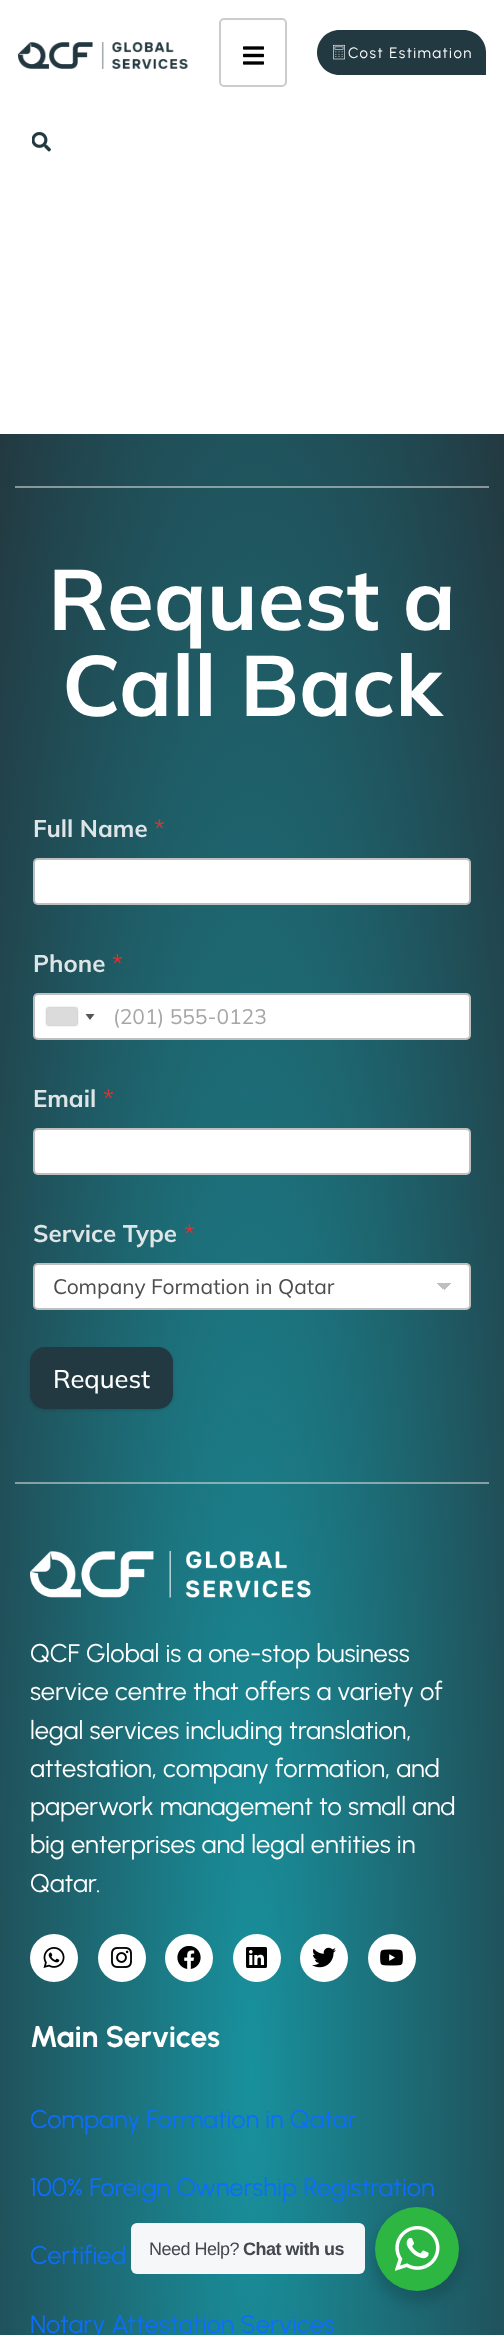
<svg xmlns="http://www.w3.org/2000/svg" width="504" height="2335">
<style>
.a{font:15px Urbanist;letter-spacing:1.5px;fill:#fff}
.b{font:bold 85.5px Mulish;fill:#fff}
.c{font:bold 24px Mulish;fill:#dee5e7}
.d{font:24px Mulish;fill:#d63637}
.e{font:21px Mulish;fill:#a6a6a6}
.f{font:21px Mulish;fill:#4d4d4d}
.g{font:500 25.5px Mulish;fill:#fff}
.h{font:25.5px Urbanist;fill:#fff}
.i{font:bold 30px Urbanist;fill:#fff}
.j{font:25.5px Urbanist;fill:#0d6efd}
.k{font:18px Liberation Sans;letter-spacing:-0.5px;fill:#43474e}
.l{font:bold 18px Liberation Sans;letter-spacing:-0.5px;fill:#43474e}
</style>
<defs>
<radialGradient id="g1" gradientUnits="userSpaceOnUse" cx="0" cy="0" r="1" gradientTransform="matrix(356 0 0 2321 252 2075)"><stop offset="0" stop-color="#18919d"/><stop offset="1" stop-color="#233941"/></radialGradient>
<radialGradient id="g2" gradientUnits="userSpaceOnUse" cx="0" cy="0" r="1" gradientTransform="matrix(356 0 0 2321 252 2075)"><stop offset="0" stop-color="#84bbc0"/><stop offset="1" stop-color="#899397"/></radialGradient>
<linearGradient id="g3" gradientUnits="userSpaceOnUse" x1="444" y1="1283" x2="452" y2="1290"><stop offset="0.5" stop-color="#bfbfbf"/><stop offset="0.5" stop-color="#fff"/></linearGradient>
<linearGradient id="g4" gradientUnits="userSpaceOnUse" x1="437" y1="1290" x2="444" y2="1283"><stop offset="0.5" stop-color="#fff"/><stop offset="0.5" stop-color="#bfbfbf"/></linearGradient>
</defs>
<rect width="100%" height="100%" fill="#fff"/>
<image href="1.png" x="18" y="42" width="170" height="27"/>
<rect fill="none" stroke="#ccc" stroke-width="2" x="220" y="19" width="66" height="67" rx="4"/>
<image href="2.png" x="243" y="46" width="21" height="19"/>
<path fill="#233941" d="M339.5 30h124c12.5 0 22.5 10 22.5 22.5v22.5h-146.5c-12.5 0-22.5-10-22.5-22.5c0-12.5 10-22.5 22.5-22.5z"/>
<image href="3.png" x="333" y="44" width="12" height="16"/>
<image href="4.png" x="32" y="132" width="19" height="20"/>
<path fill="url(#g1)" d="M0 434h504v1901H0z"/>
<path fill="url(#g2)" d="M15 1482h474v2H15z"/>
<path fill="url(#g2)" d="M15 486h474v2H15z"/>
<rect fill="#fff" x="33" y="858" width="438" height="47" rx="5"/>
<rect fill="none" stroke="#00000040" stroke-width="2" x="34" y="859" width="436" height="45" rx="4"/>
<rect fill="#fff" x="33" y="993" width="438" height="47" rx="5"/>
<rect fill="none" stroke="#00000040" stroke-width="2" x="34" y="994" width="436" height="45" rx="4"/>
<path fill="#888" filter="blur(1px)" d="M47 1008h30v17H47z"/>
<path fill="#dbdbdb" d="M47 1008h30v17H47z"/>
<path fill="#555" d="M85.5 1014h9l-4.5 6z"/>
<rect fill="#fff" x="33" y="1128" width="438" height="47" rx="5"/>
<rect fill="none" stroke="#00000040" stroke-width="2" x="34" y="1129" width="436" height="45" rx="4"/>
<rect fill="#fff" x="33" y="1263" width="438" height="47" rx="5"/>
<path fill="url(#g3)" d="M444 1283h8v7H444z"/>
<path fill="url(#g4)" d="M437 1283h7v6H437z"/>
<rect fill="none" stroke="#00000040" stroke-width="2" x="34" y="1264" width="436" height="45" rx="4"/>
<rect fill="#00000026" filter="blur(1.5px)" x="30" y="1349" width="143" height="61" rx="15"/>
<rect fill="#233941" x="30" y="1347" width="143" height="62" rx="15"/>
<image href="5.png" x="30" y="1551" width="281" height="47"/>
<circle fill="#fff" cx="54" cy="1958" r="24"/>
<image href="6.png" x="43" y="1947" width="22" height="21"/>
<circle fill="#fff" cx="122" cy="1958" r="24"/>
<image href="7.png" x="111" y="1947" width="21" height="21"/>
<circle fill="#fff" cx="189" cy="1958" r="24"/>
<image href="8.png" x="177" y="1946" width="24" height="23"/>
<circle fill="#fff" cx="257" cy="1958" r="24"/>
<image href="9.png" x="246" y="1947" width="21" height="21"/>
<circle fill="#fff" cx="324" cy="1958" r="24"/>
<image href="10.png" x="312" y="1947" width="24" height="21"/>
<circle fill="#fff" cx="392" cy="1958" r="24"/>
<image href="11.png" x="380" y="1949" width="23" height="17"/>
<rect fill="#00000024" filter="blur(6px)" x="372" y="2213" width="90" height="90" rx="45"/>
<rect fill="#f5f7f9" x="131" y="2223" width="234" height="51" rx="6"/>
<circle fill="#2db742" cx="417" cy="2249" r="42"/>
<image href="12.png" x="395" y="2226" width="45" height="45"/>
<text class="a" x="348" y="58">Cost Estimation</text>
<text class="b" x="48" y="630">Request a</text>
<text class="b" x="62" y="716">Call Back</text>
<text class="c" x="33" y="837">Full Name</text>
<text class="d" x="154" y="837">*</text>
<text class="c" x="33" y="972">Phone</text>
<text class="d" x="112" y="972">*</text>
<text class="e" x="113" y="1024">(201) 555-0123</text>
<text class="c" x="33" y="1107">Email</text>
<text class="d" x="103" y="1107">*</text>
<text class="c" x="33" y="1242">Service Type</text>
<text class="d" x="184" y="1242">*</text>
<text class="f" x="53" y="1294">Company Formation in Qatar</text>
<text class="g" x="53" y="1388">Request</text>
<text class="h" x="30" y="1662">QCF Global is a one-stop business</text>
<text class="h" x="30" y="1700">service centre that offers a variety of</text>
<text class="h" x="30" y="1739">legal services including translation,</text>
<text class="h" x="30" y="1777">attestation, company formation, and</text>
<text class="h" x="30" y="1815">paperwork management to small and</text>
<text class="h" x="30" y="1853">big enterprises and legal entities in</text>
<text class="h" x="30" y="1892">Qatar.</text>
<text class="i" x="30" y="2047">Main Services</text>
<text class="j" x="30" y="2128">Company Formation in Qatar</text>
<text class="j" x="30" y="2196">100% Foreign Ownership Registration</text>
<text class="j" x="30" y="2264">Certified</text>
<text class="j" x="30" y="2333">Notary Attestation Services</text>
<text class="k" x="149" y="2255">Need Help?</text>
<text class="l" x="243" y="2255">Chat with us</text>
</svg>
